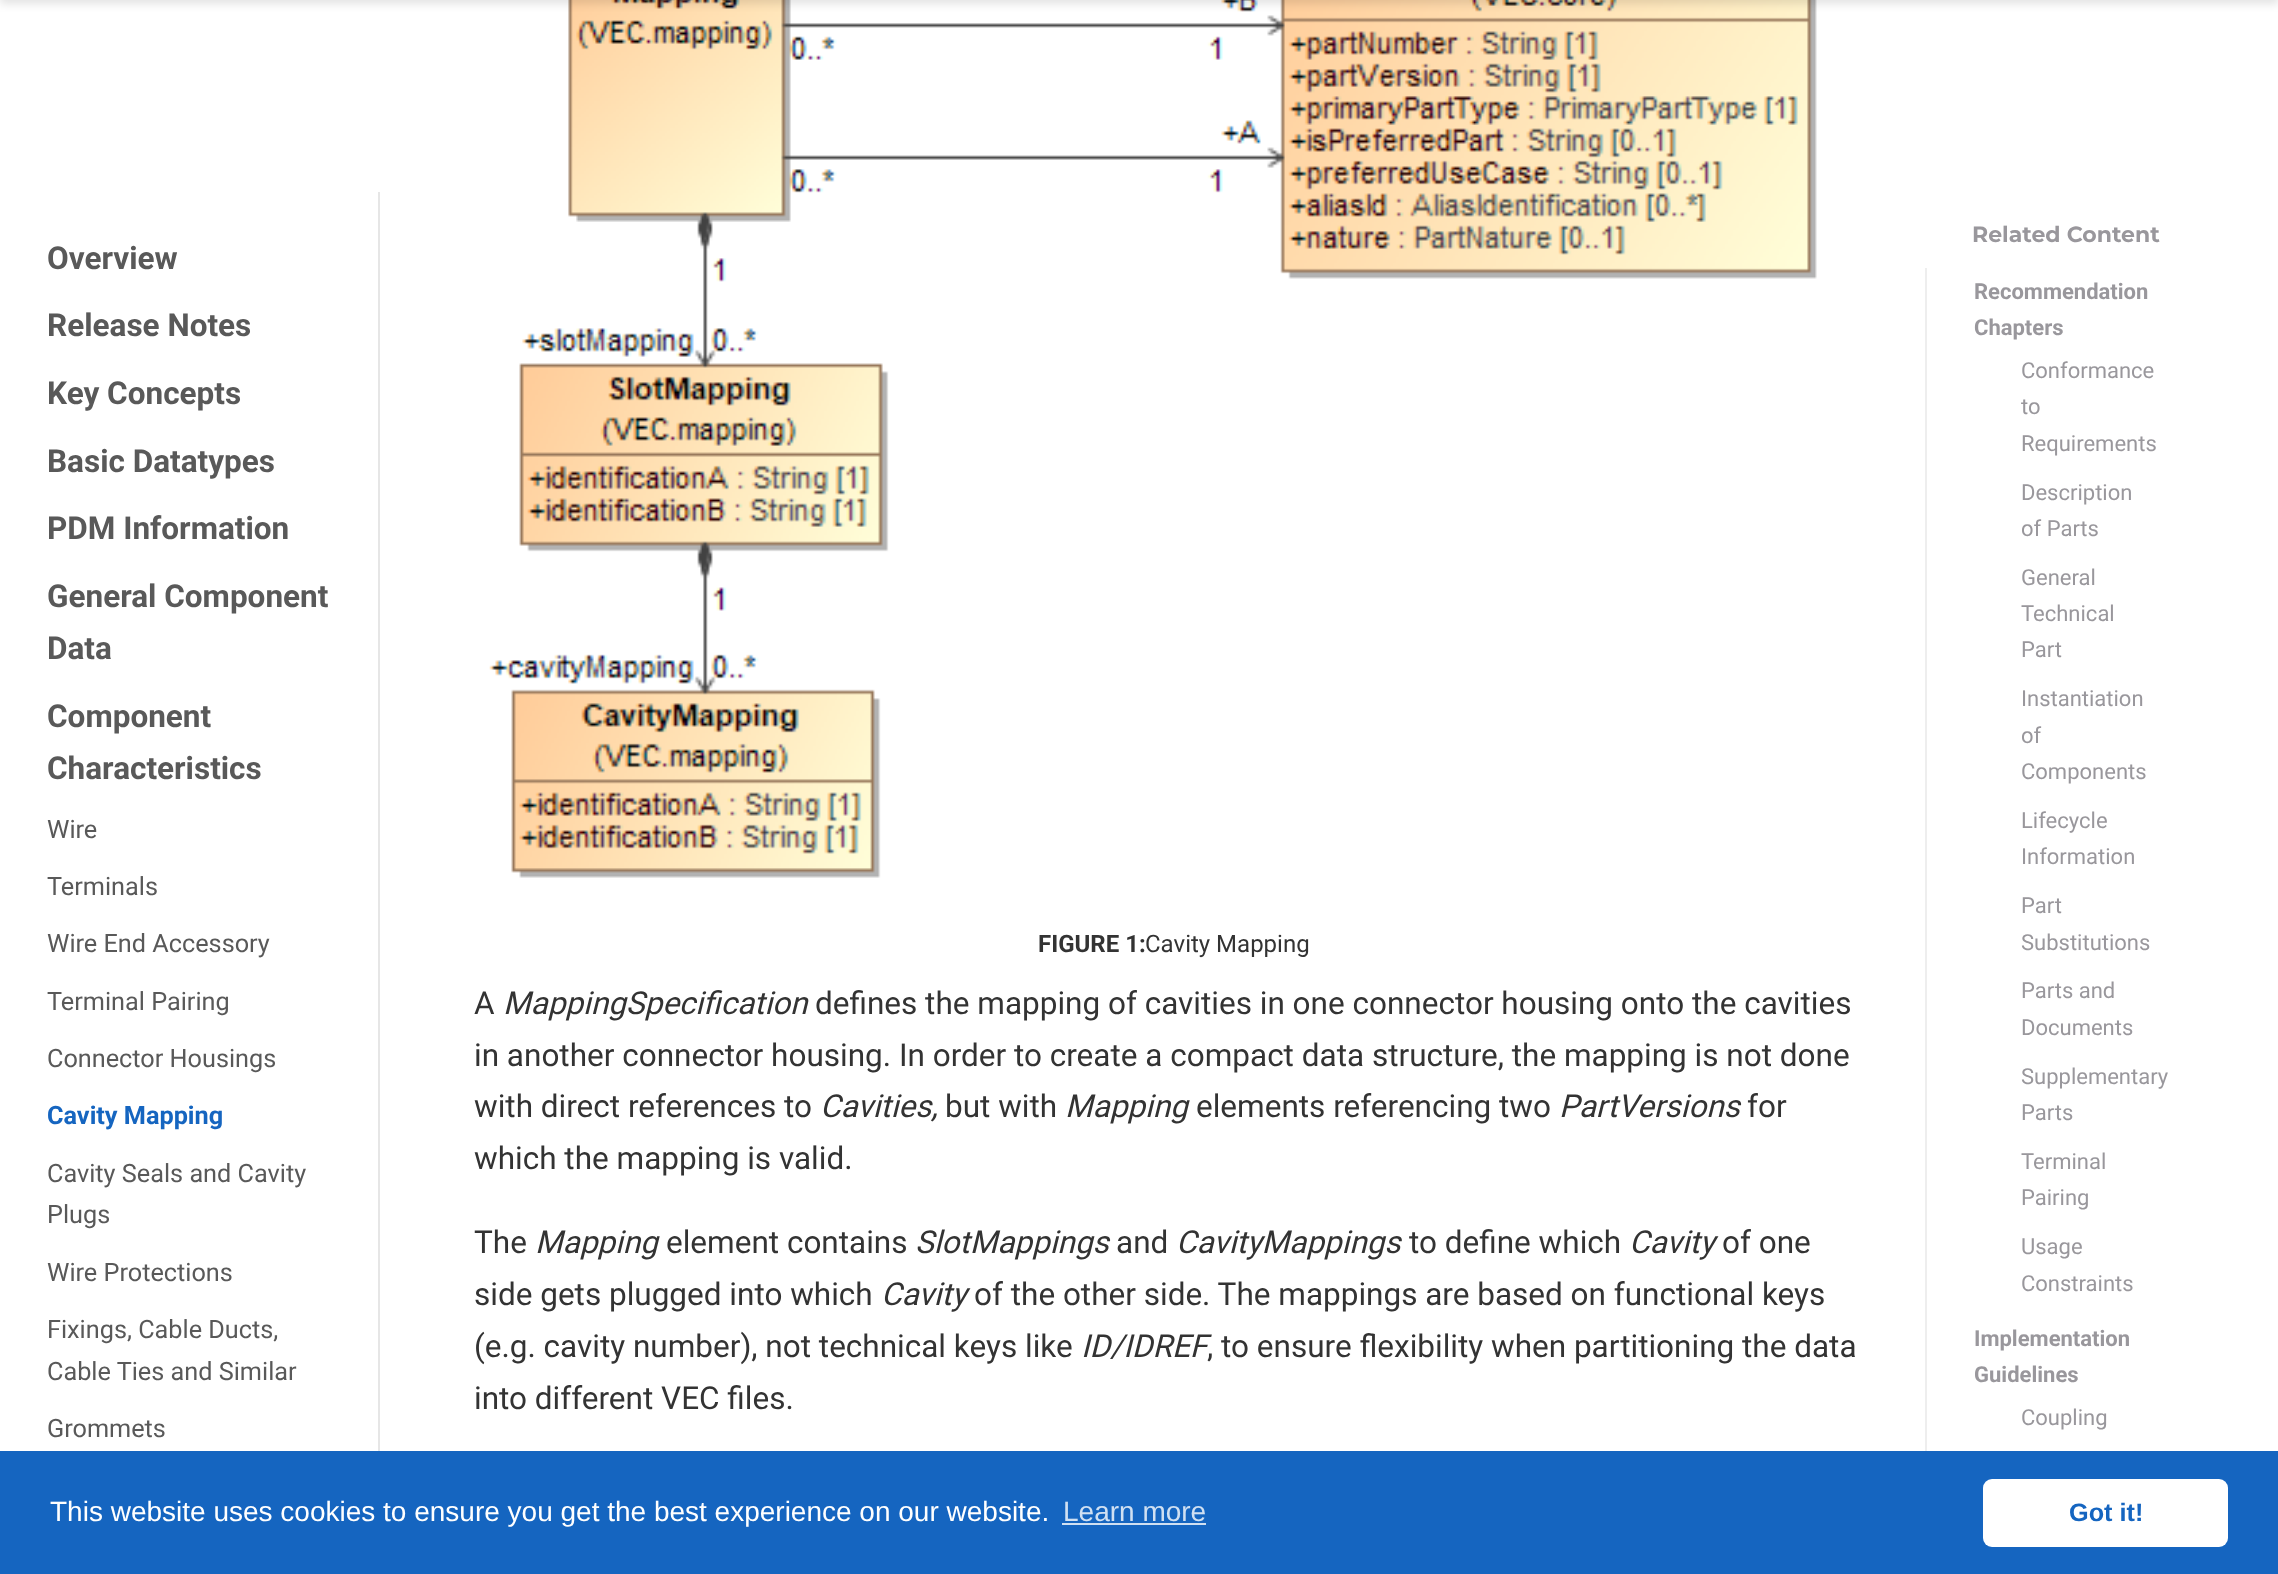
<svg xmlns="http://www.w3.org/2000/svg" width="2278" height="1574">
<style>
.a{font:bold 31.5px Roboto;fill:#595959}
.b{font:25.25px Roboto;fill:#595959}
.c{font:bold 25.25px Roboto;fill:#1565c0}
.d{font:bold 24px Roboto;fill:#333}
.e{font:24px Roboto;fill:#333}
.f{font:31.5px Roboto;fill:#333}
.g{font:italic 31.5px Roboto;fill:#333}
.h{font:bold 22px Montserrat;fill:#99979c}
.i{font:bold 22px Roboto;fill:#99979c}
.j{font:22px Roboto;fill:#99979c}
.k{font:28px Liberation Sans;fill:#fff}
.l{font:28px Liberation Sans;fill:#d0e0f2}
.m{font:bold 25.25px Liberation Sans;fill:#1565c0}
</style>
<rect width="100%" height="100%" fill="#fff"/>
<image href="1.png" x="489" y="0" width="1328" height="878"/>
<path fill="#0000001c" filter="blur(4px)" d="M0 -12h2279v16H0z"/>
<path fill="#e6e6e6" d="M380 192v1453l-2-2v-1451z"/>
<path fill="#eee" d="M1925 268h2v1183H1925z"/>
<path fill="#1565c0" d="M0 1451h2278v123H0z"/>
<path fill="#d0e0f2" d="M1062 1523h144v2H1062z"/>
<rect fill="#fff" x="1983" y="1479" width="245" height="68" rx="9"/>
<text class="a" x="47" y="269">Overview</text>
<text class="a" x="47" y="336">Release Notes</text>
<text class="a" x="47" y="404">Key Concepts</text>
<text class="a" x="47" y="472">Basic Datatypes</text>
<text class="a" x="47" y="539">PDM Information</text>
<text class="a" x="47" y="607">General Component</text>
<text class="a" x="47" y="659">Data</text>
<text class="a" x="47" y="727">Component</text>
<text class="a" x="47" y="779">Characteristics</text>
<text class="b" x="47" y="838">Wire</text>
<text class="b" x="47" y="895">Terminals</text>
<text class="b" x="47" y="952">Wire End Accessory</text>
<text class="b" x="47" y="1010">Terminal Pairing</text>
<text class="b" x="47" y="1067">Connector Housings</text>
<text class="c" x="47" y="1124">Cavity Mapping</text>
<text class="b" x="47" y="1182">Cavity Seals and Cavity</text>
<text class="b" x="47" y="1223">Plugs</text>
<text class="b" x="47" y="1281">Wire Protections</text>
<text class="b" x="47" y="1338">Fixings, Cable Ducts,</text>
<text class="b" x="47" y="1380">Cable Ties and Similar</text>
<text class="b" x="47" y="1437">Grommets</text>
<text class="d" x="1038" y="952">FIGURE 1:</text>
<text class="e" x="1145" y="952">Cavity Mapping</text>
<text class="f" x="474" y="1014">A</text>
<text class="g" x="503" y="1014">MappingSpecification</text>
<text class="f" x="815" y="1014">defines the mapping of cavities in one connector housing onto the cavities</text>
<text class="f" x="474" y="1066">in another connector housing. In order to create a compact data structure, the mapping is not done</text>
<text class="f" x="474" y="1117">with direct references to</text>
<text class="g" x="820" y="1117">Cavities,</text>
<text class="f" x="945" y="1117">but with</text>
<text class="g" x="1065" y="1117">Mapping</text>
<text class="f" x="1196" y="1117">elements referencing two</text>
<text class="g" x="1559" y="1117">PartVersions</text>
<text class="f" x="1747" y="1117">for</text>
<text class="f" x="474" y="1169">which the mapping is valid.</text>
<text class="f" x="474" y="1253">The</text>
<text class="g" x="535" y="1253">Mapping</text>
<text class="f" x="666" y="1253">element contains</text>
<text class="g" x="915" y="1253">SlotMappings</text>
<text class="f" x="1116" y="1253">and</text>
<text class="g" x="1176" y="1253">CavityMappings</text>
<text class="f" x="1409" y="1253">to define which</text>
<text class="g" x="1629" y="1253">Cavity</text>
<text class="f" x="1722" y="1253">of one</text>
<text class="f" x="474" y="1305">side gets plugged into which</text>
<text class="g" x="881" y="1305">Cavity</text>
<text class="f" x="974" y="1305">of the other side. The mappings are based on functional keys</text>
<text class="f" x="474" y="1357">(e.g. cavity number), not technical keys like</text>
<text class="g" x="1081" y="1357">ID/IDREF</text>
<text class="f" x="1207" y="1357">, to ensure flexibility when partitioning the data</text>
<text class="f" x="474" y="1409">into different VEC files.</text>
<text class="h" x="1972" y="242">Related Content</text>
<text class="i" x="1974" y="299">Recommendation</text>
<text class="i" x="1974" y="335">Chapters</text>
<text class="j" x="2021" y="378">Conformance</text>
<text class="j" x="2021" y="414">to</text>
<text class="j" x="2021" y="451">Requirements</text>
<text class="j" x="2021" y="500">Description</text>
<text class="j" x="2021" y="536">of Parts</text>
<text class="j" x="2021" y="585">General</text>
<text class="j" x="2021" y="621">Technical</text>
<text class="j" x="2021" y="657">Part</text>
<text class="j" x="2021" y="706">Instantiation</text>
<text class="j" x="2021" y="743">of</text>
<text class="j" x="2021" y="779">Components</text>
<text class="j" x="2021" y="828">Lifecycle</text>
<text class="j" x="2021" y="864">Information</text>
<text class="j" x="2021" y="913">Part</text>
<text class="j" x="2021" y="950">Substitutions</text>
<text class="j" x="2021" y="998">Parts and</text>
<text class="j" x="2021" y="1035">Documents</text>
<text class="j" x="2021" y="1084">Supplementary</text>
<text class="j" x="2021" y="1120">Parts</text>
<text class="j" x="2021" y="1169">Terminal</text>
<text class="j" x="2021" y="1205">Pairing</text>
<text class="j" x="2021" y="1254">Usage</text>
<text class="j" x="2021" y="1291">Constraints</text>
<text class="i" x="1974" y="1346">Implementation</text>
<text class="i" x="1974" y="1382">Guidelines</text>
<text class="j" x="2021" y="1425">Coupling</text>
<text class="k" x="50" y="1521">This website uses cookies to ensure you get the best experience on our website.</text>
<text class="l" x="1063" y="1521">Learn more</text>
<text class="m" x="2069" y="1521">Got it!</text>
</svg>
